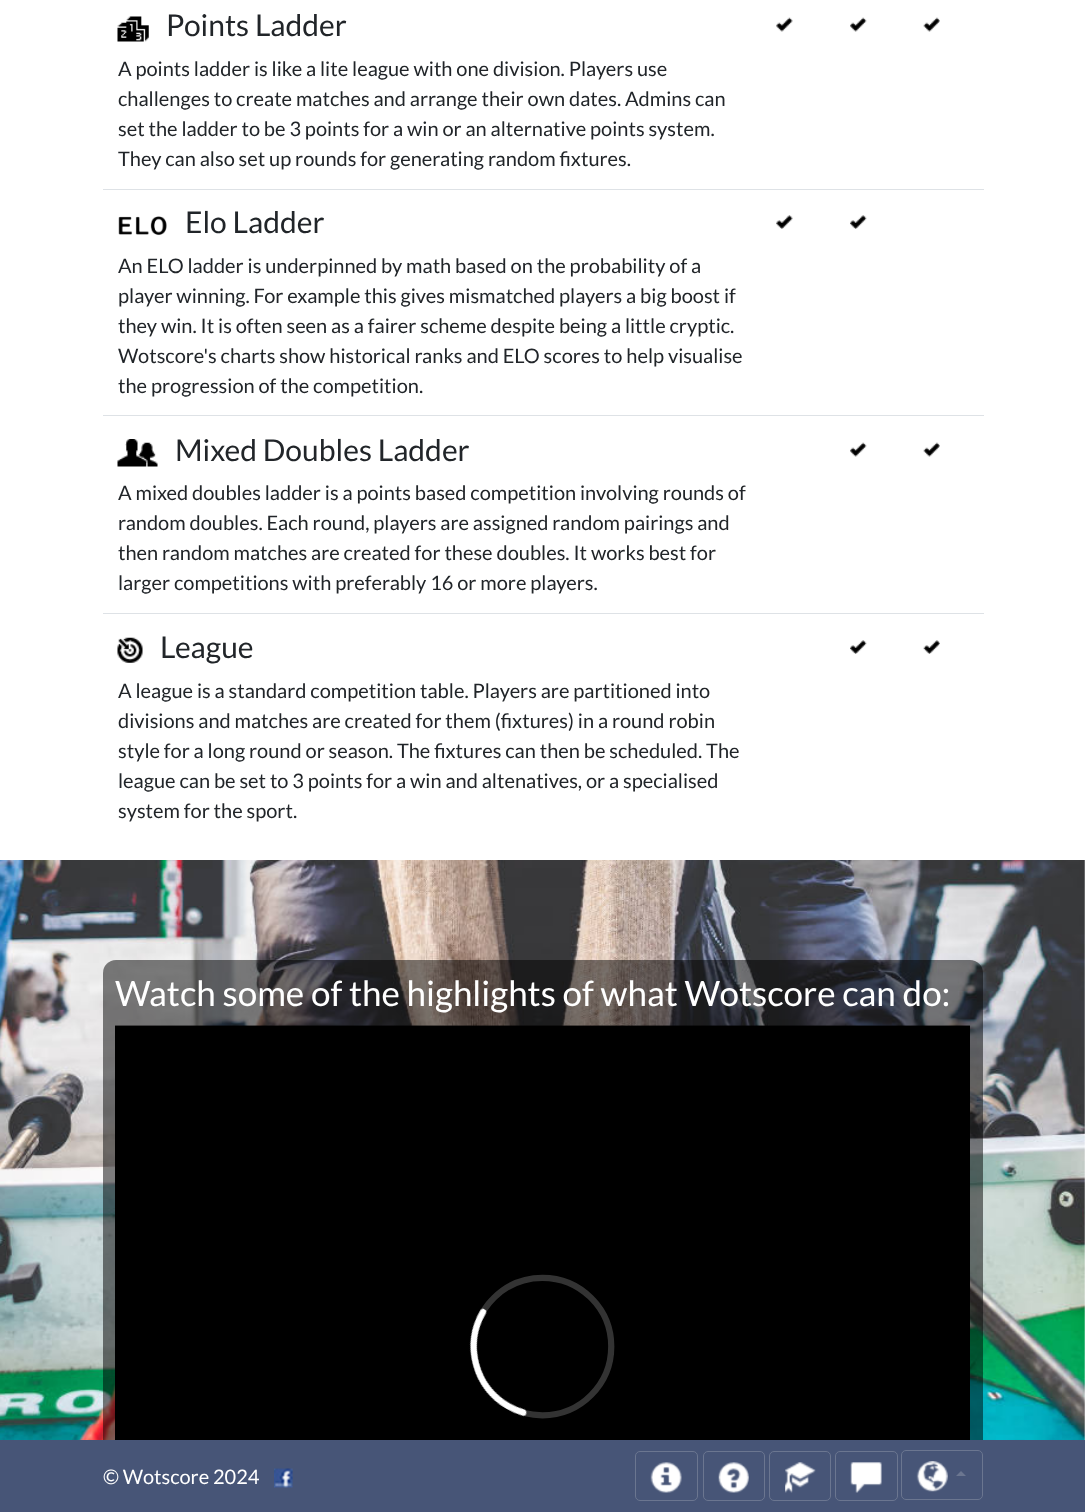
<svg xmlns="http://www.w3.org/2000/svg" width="1085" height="1512">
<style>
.a{font:30px Lato;fill:#212529}
.b{font:20px Lato;fill:#212529}
.c{font:35px Lato;fill:#fff}
.d{font:20px Lato;fill:#fff}
</style>
<rect width="100%" height="100%" fill="#fff"/>
<image href="1.png" x="117" y="16" width="32" height="26"/>
<image href="2.png" x="776" y="17" width="17" height="15"/>
<image href="3.png" x="850" y="17" width="17" height="15"/>
<image href="4.png" x="923" y="17" width="17" height="15"/>
<path fill="#dee2e6" d="M103 189h881v1H103z"/>
<image href="5.png" x="118" y="216" width="49" height="20"/>
<image href="6.png" x="776" y="215" width="17" height="14"/>
<image href="7.png" x="850" y="215" width="17" height="14"/>
<path fill="#dee2e6" d="M103 415h881v1H103z"/>
<image href="4.png" x="923" y="442" width="17" height="15"/>
<image href="8.png" x="117" y="439" width="41" height="28"/>
<image href="3.png" x="850" y="442" width="17" height="15"/>
<path fill="#dee2e6" d="M103 613h881v1H103z"/>
<image href="9.png" x="923" y="640" width="17" height="14"/>
<image href="10.png" x="117" y="637" width="26" height="26"/>
<image href="7.png" x="850" y="640" width="17" height="14"/>
<image href="11.png" x="0" y="860" width="1085" height="580"/>
<rect fill="#00000080" x="103" y="960" width="880" height="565" rx="13"/>
<image href="12.png" x="115" y="1025" width="855" height="415"/>
<path fill="#475577" d="M0 1440h1085v72H0z"/>
<image href="13.png" x="274" y="1468" width="19" height="20"/>
<rect fill="none" stroke="#6b7690" x="635.5" y="1451.5" width="62" height="49" rx="4.5"/>
<image href="14.png" x="650" y="1462" width="32" height="31"/>
<rect fill="none" stroke="#6b7690" x="703.5" y="1451.5" width="61" height="49" rx="4.5"/>
<image href="15.png" x="718" y="1462" width="31" height="31"/>
<rect fill="none" stroke="#6b7690" x="769.5" y="1451.5" width="61" height="49" rx="4.5"/>
<image href="16.png" x="785" y="1462" width="31" height="31"/>
<rect fill="none" stroke="#6b7690" x="835.5" y="1451.5" width="62" height="49" rx="4.5"/>
<image href="17.png" x="850" y="1462" width="32" height="31"/>
<rect fill="none" stroke="#6b7690" x="901.5" y="1450.5" width="81" height="49" rx="4.5"/>
<image href="18.png" x="916" y="1461" width="32" height="31"/>
<path fill="#6b7690" d="M966 1476h-10l5-5z"/>
<text class="a" x="166" y="36">Points Ladder</text>
<text class="b" x="118" y="76">A points ladder is like a lite league with one division. Players use</text>
<text class="b" x="118" y="106">challenges to create matches and arrange their own dates. Admins can</text>
<text class="b" x="118" y="136">set the ladder to be 3 points for a win or an alternative points system.</text>
<text class="b" x="118" y="166">They can also set up rounds for generating random fixtures.</text>
<text class="a" x="185" y="233">Elo Ladder</text>
<text class="b" x="118" y="273">An ELO ladder is underpinned by math based on the probability of a</text>
<text class="b" x="118" y="303">player winning. For example this gives mismatched players a big boost if</text>
<text class="b" x="118" y="333">they win. It is often seen as a fairer scheme despite being a little cryptic.</text>
<text class="b" x="118" y="363">Wotscore's charts show historical ranks and ELO scores to help visualise</text>
<text class="b" x="118" y="393">the progression of the competition.</text>
<text class="a" x="175" y="461">Mixed Doubles Ladder</text>
<text class="b" x="118" y="500">A mixed doubles ladder is a points based competition involving rounds of</text>
<text class="b" x="118" y="530">random doubles. Each round, players are assigned random pairings and</text>
<text class="b" x="118" y="560">then random matches are created for these doubles. It works best for</text>
<text class="b" x="118" y="590">larger competitions with preferably 16 or more players.</text>
<text class="a" x="160" y="658">League</text>
<text class="b" x="118" y="698">A league is a standard competition table. Players are partitioned into</text>
<text class="b" x="118" y="728">divisions and matches are created for them (fixtures) in a round robin</text>
<text class="b" x="118" y="758">style for a long round or season. The fixtures can then be scheduled. The</text>
<text class="b" x="118" y="788">league can be set to 3 points for a win and altenatives, or a specialised</text>
<text class="b" x="118" y="818">system for the sport.</text>
<text class="c" x="115" y="1006">Watch some of the highlights of what Wotscore can do:</text>
<text class="d" x="103" y="1484">© Wotscore 2024</text>
</svg>
